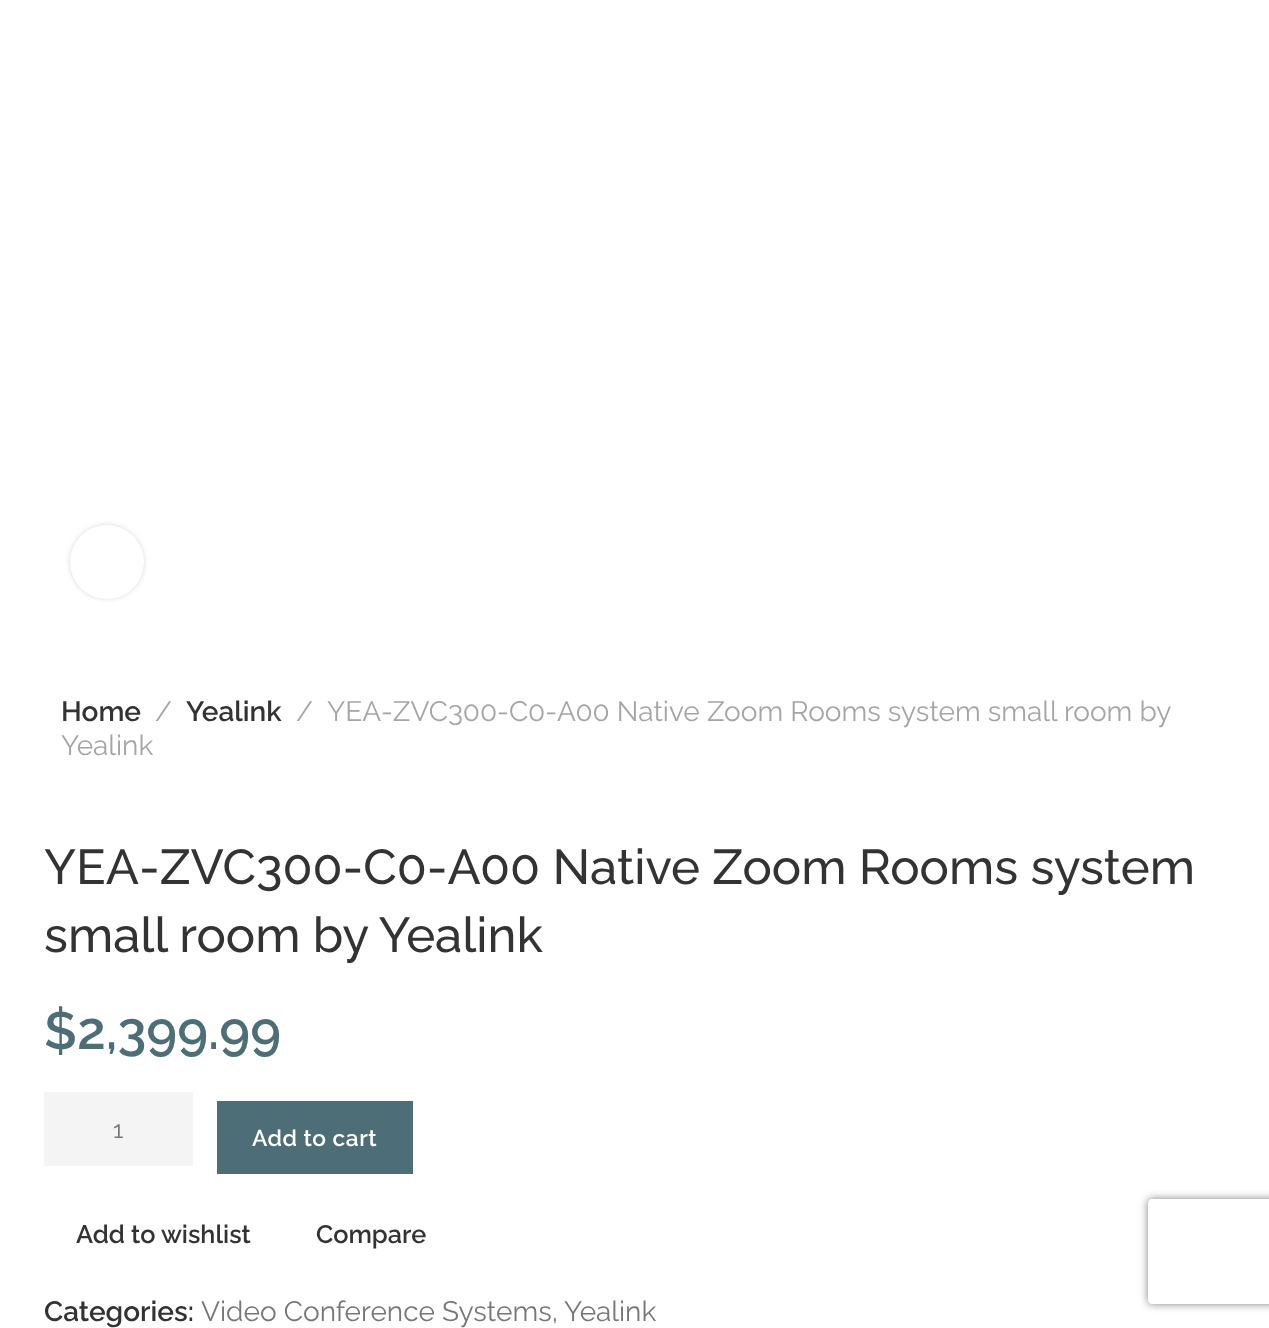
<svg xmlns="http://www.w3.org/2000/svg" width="1269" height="1328">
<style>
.a{font:600 28px Raleway;fill:#333}
.b{font:28px Raleway;fill:#a5a5a5}
.c{font:500 49px Raleway;fill:#333}
.d{font:600 52.5px Raleway;fill:#4d6e77}
.e{font:24px Raleway;fill:#777}
.f{font:600 22.75px Raleway;letter-spacing:0.5px;fill:#fff}
.g{font:600 25.25px Raleway;fill:#333}
.h{font:28px Raleway;fill:#777}
</style>
<defs>
<clipPath id="clip1"><path d="M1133 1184h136v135h-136zm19 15h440c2 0 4 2 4 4v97c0 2-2 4-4 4h-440c-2 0-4-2-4-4v-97c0-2 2-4 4-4z" clip-rule="evenodd"/></clipPath>
</defs>
<rect width="100%" height="100%" fill="#fff"/>
<rect fill="#00000026" filter="blur(2.5px)" x="70" y="525" width="74" height="74" rx="37"/>
<circle fill="#fff" cx="107" cy="562" r="37"/>
<path fill="#f4f4f4" d="M44 1092h149v74H44z"/>
<path fill="#4d6e77" d="M217 1101h196v73H217z"/>
<g clip-path="url(#clip1)">
<rect fill="#808080" filter="blur(4.5px)" x="1148" y="1199" width="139" height="105" rx="4"/>
</g>
<text class="a" x="61" y="721">Home</text>
<text class="b" x="155" y="721">/</text>
<text class="a" x="186" y="721">Yealink</text>
<text class="b" x="296" y="721">/</text>
<text class="b" x="327" y="721">YEA-ZVC300-C0-A00 Native Zoom Rooms system small room by</text>
<text class="b" x="61" y="755">Yealink</text>
<text class="c" x="44" y="884">YEA-ZVC300-C0-A00 Native Zoom Rooms system</text>
<text class="c" x="44" y="952">small room by Yealink</text>
<text class="d" x="44" y="1049">$2,399.99</text>
<text class="e" x="113" y="1138">1</text>
<text class="f" x="252" y="1146">Add to cart</text>
<text class="g" x="76" y="1243">Add to wishlist</text>
<text class="g" x="316" y="1243">Compare</text>
<text class="a" x="44" y="1321">Categories:</text>
<text class="h" x="201" y="1321">Video Conference Systems,</text>
<text class="h" x="564" y="1321">Yealink</text>
</svg>
